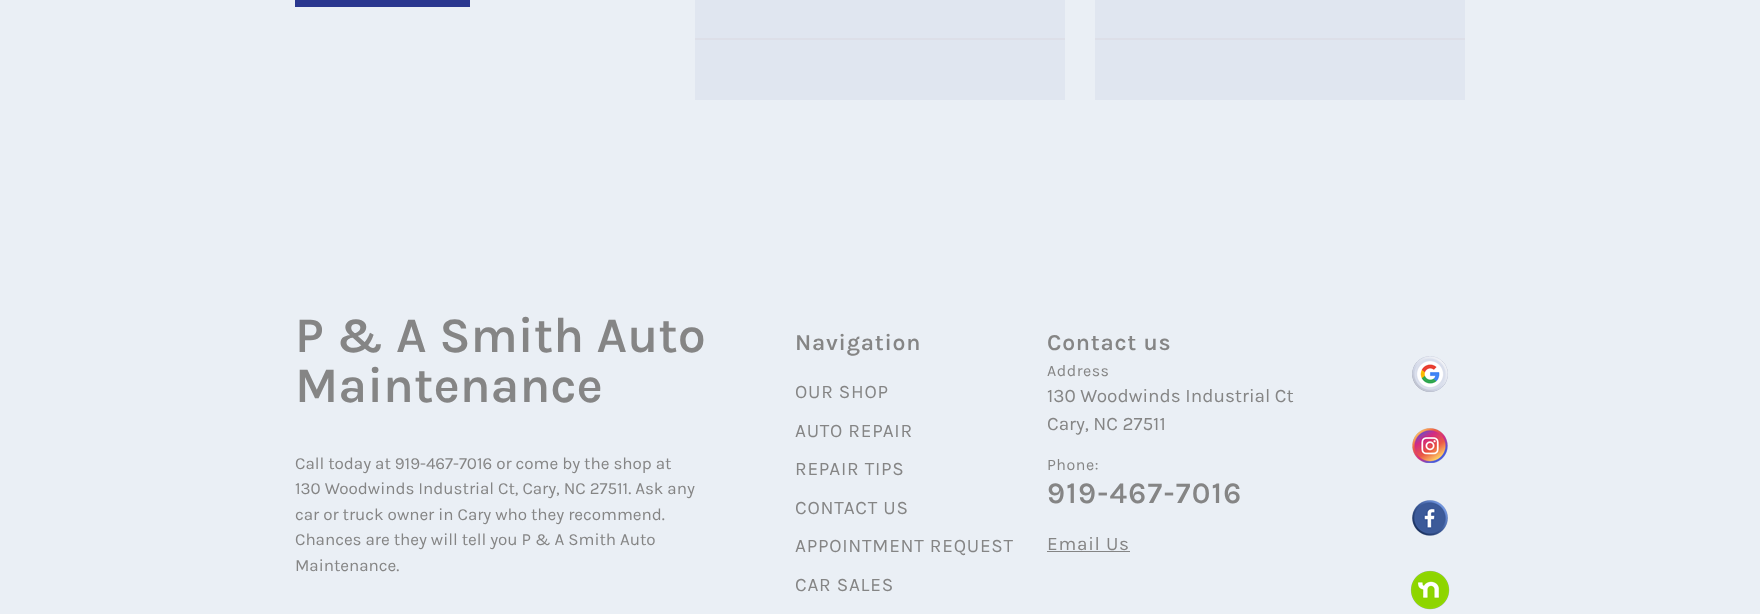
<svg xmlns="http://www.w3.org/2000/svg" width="1760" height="614">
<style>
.a{font:600 50px Karla;fill:#858585}
.b{font:17px Karla;letter-spacing:-0.03px;fill:#858585}
.c{font:600 23px Karla;letter-spacing:0.75px;fill:#858585}
.d{font:19px Karla;letter-spacing:0.75px;fill:#858585}
.e{font:16px Karla;letter-spacing:0.5px;fill:#858585}
.f{font:19px Karla;fill:#858585}
.g{font:600 30px Karla;letter-spacing:1.25px;fill:#858585}
</style>
<rect width="100%" height="100%" fill="#eaeff5"/>
<path fill="#2a378f" d="M295 0h175v7H295z"/>
<path fill="#e0e6f0" d="M695 0h370v100H695z"/>
<path fill="#dddfe8" d="M695 38h370v2H695z"/>
<path fill="#e0e6f0" d="M1095 0h370v100H1095z"/>
<path fill="#dddfe8" d="M1095 38h370v2H1095z"/>
<path fill="#858585" d="M1047 551h83v1H1047z"/>
<image href="1.png" x="1412" y="356" width="36" height="36"/>
<image href="2.png" x="1412" y="428" width="36" height="35"/>
<image href="3.png" x="1412" y="500" width="36" height="36"/>
<image href="4.png" x="1410" y="570" width="40" height="40"/>
<text class="a" x="295" y="352">P &amp; A Smith Auto</text>
<text class="a" x="295" y="402">Maintenance</text>
<text class="b" x="295" y="469">Call today at 919-467-7016 or come by the shop at</text>
<text class="b" x="295" y="494">130 Woodwinds Industrial Ct, Cary, NC 27511. Ask any</text>
<text class="b" x="295" y="520">car or truck owner in Cary who they recommend.</text>
<text class="b" x="295" y="545">Chances are they will tell you P &amp; A Smith Auto</text>
<text class="b" x="295" y="571">Maintenance.</text>
<text class="c" x="795" y="350">Navigation</text>
<text class="d" x="795" y="398">OUR SHOP</text>
<text class="d" x="795" y="437">AUTO REPAIR</text>
<text class="d" x="795" y="475">REPAIR TIPS</text>
<text class="d" x="795" y="514">CONTACT US</text>
<text class="d" x="795" y="552">APPOINTMENT REQUEST</text>
<text class="d" x="795" y="591">CAR SALES</text>
<text class="c" x="1047" y="350">Contact us</text>
<text class="e" x="1047" y="376">Address</text>
<text class="f" x="1047" y="402">130 Woodwinds Industrial Ct</text>
<text class="f" x="1047" y="430">Cary, NC 27511</text>
<text class="e" x="1047" y="470">Phone:</text>
<text class="g" x="1047" y="503">919-467-7016</text>
<text class="d" x="1047" y="550">Email Us</text>
</svg>
